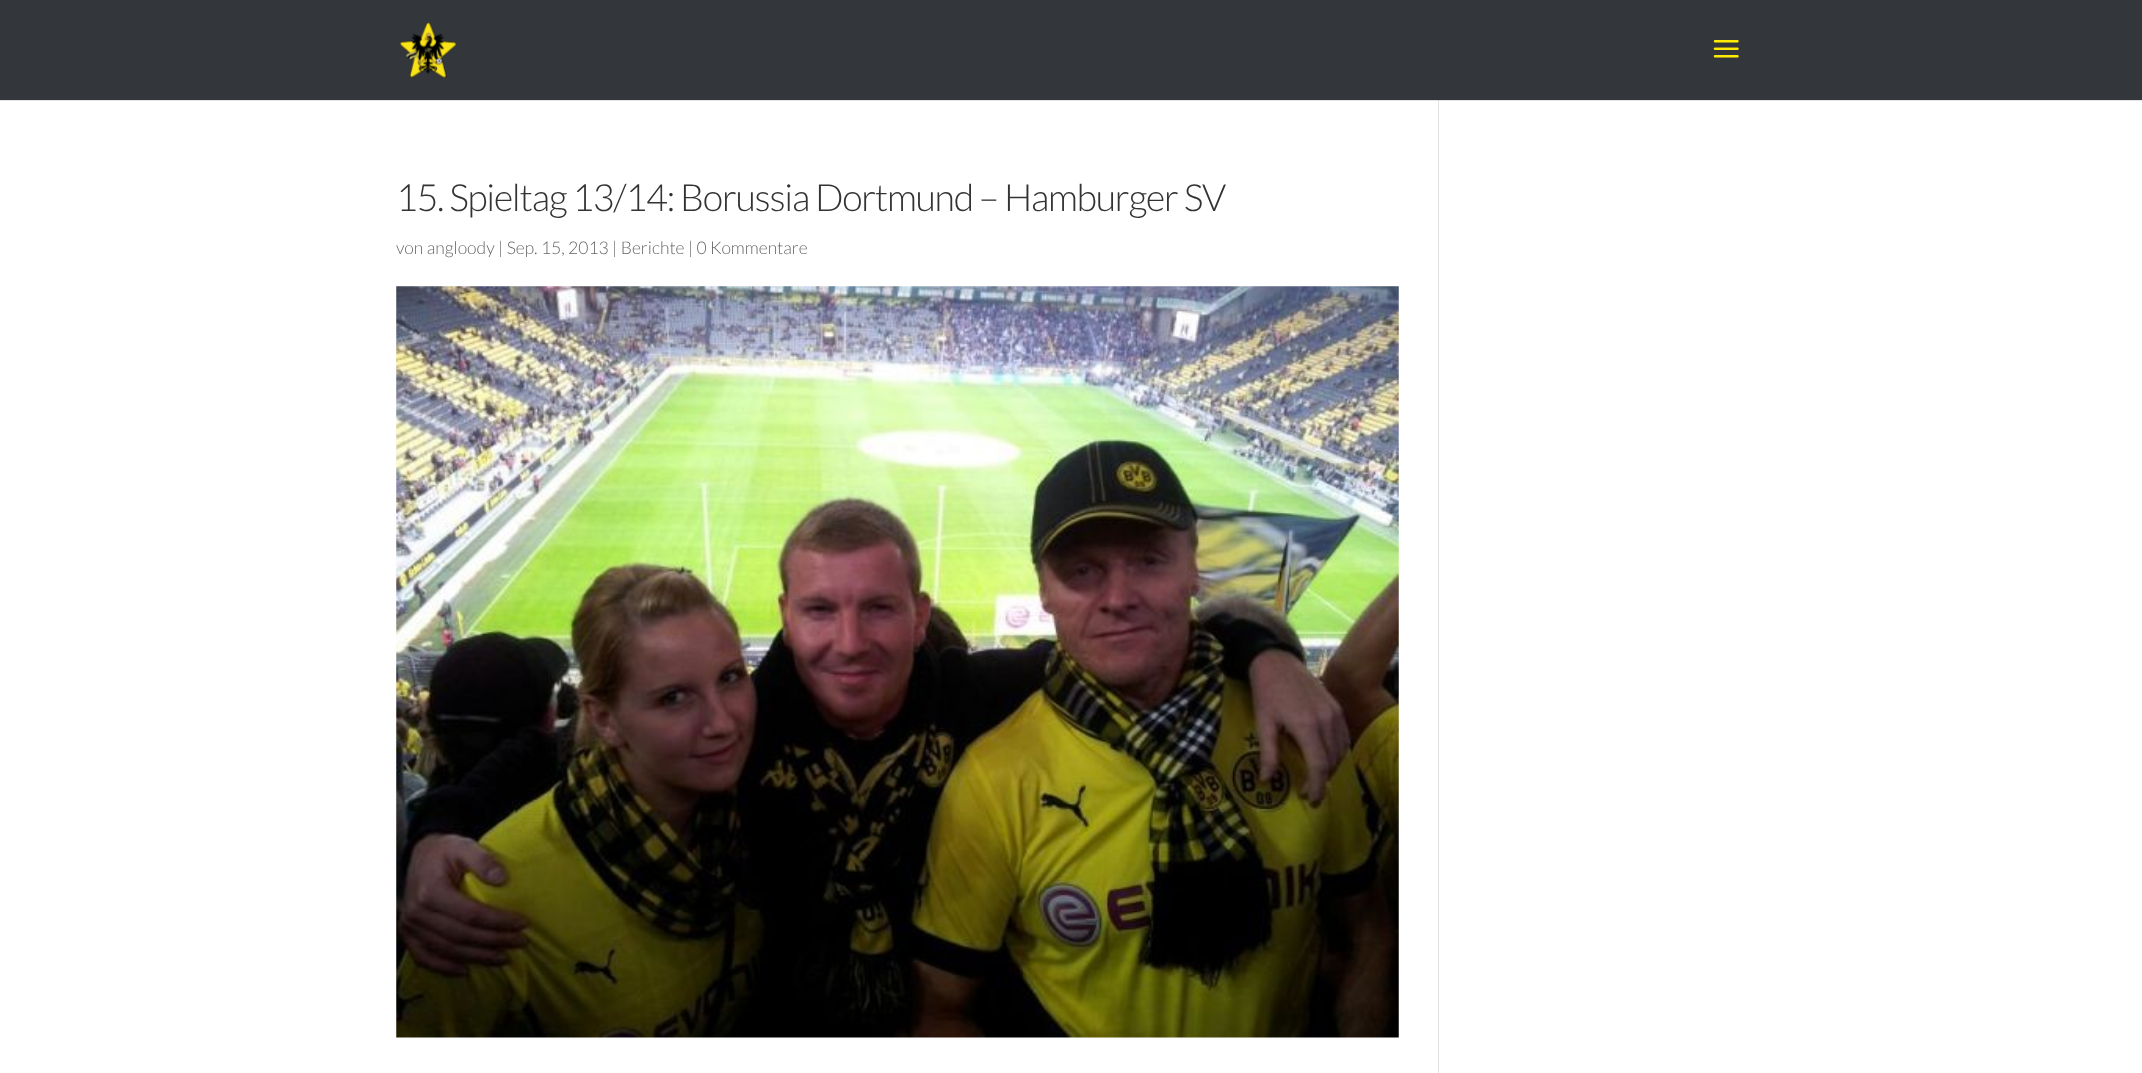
<svg xmlns="http://www.w3.org/2000/svg" width="2142" height="1073">
<style>
.a{font:300 37.5px Lato;letter-spacing:-1.25px;fill:#333}
.b{font:300 17.5px Lato;fill:#666}
</style>
<rect width="100%" height="100%" fill="#fff"/>
<path fill="#e2e2e2" d="M1438 100h1v973H1438z"/>
<path fill="#0000001a" d="M0 100v1h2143v-100h-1v99z"/>
<path fill="#33363b" d="M0 0h2142v100H0z"/>
<image href="1.png" x="399" y="22" width="58" height="56"/>
<image href="2.png" x="1713" y="40" width="26" height="18"/>
<image href="3.png" x="396" y="286" width="1003" height="752"/>
<text class="a" x="396" y="211">15. Spieltag 13/14: Borussia Dortmund – Hamburger SV</text>
<text class="b" x="396" y="254">von angloody | Sep. 15, 2013 | Berichte | 0 Kommentare</text>
</svg>
